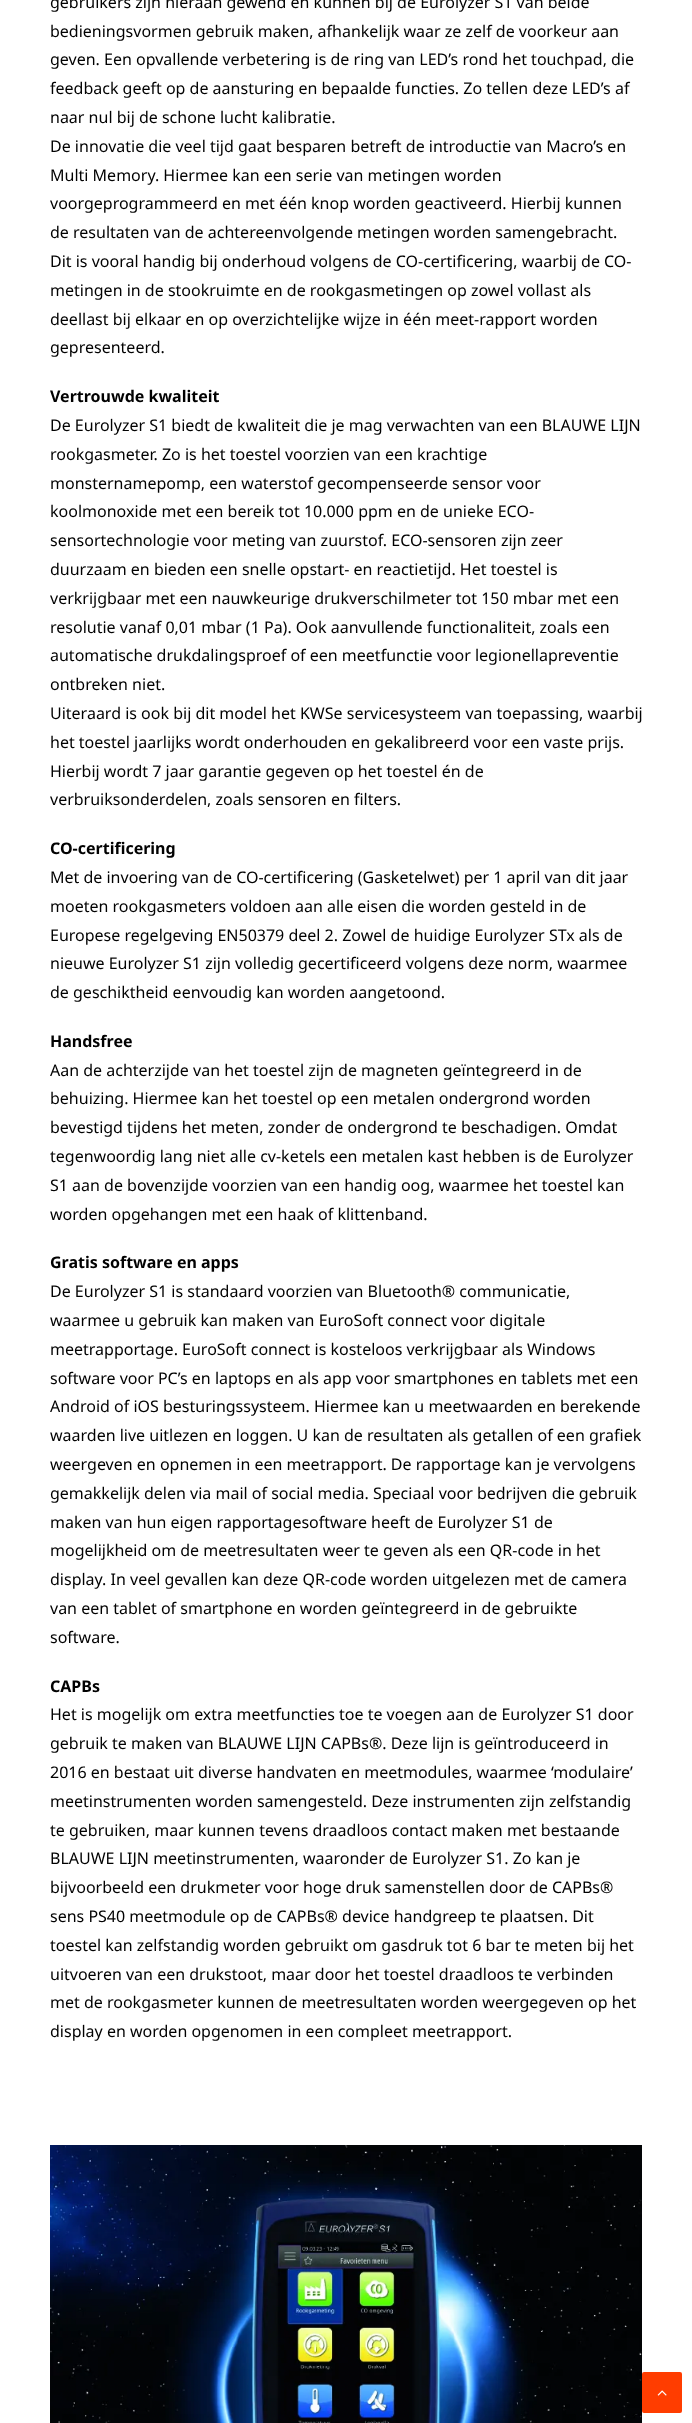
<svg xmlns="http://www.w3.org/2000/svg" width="692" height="2423">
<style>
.a{font:16px Noto Sans;fill:#010101}
.b{font:bold 16px Noto Sans;fill:#010101}
</style>
<rect width="100%" height="100%" fill="#fff"/>
<image href="1.png" x="50" y="2145" width="592" height="278"/>
<rect fill="#ff3d00" x="642" y="2372" width="40" height="41" rx="2"/>
<image href="2.png" x="657" y="2390" width="10" height="6"/>
<text class="a" x="50" y="8">gebruikers zijn hieraan gewend en kunnen bij de Eurolyzer S1 van beide</text>
<text class="a" x="50" y="37">bedieningsvormen gebruik maken, afhankelijk waar ze zelf de voorkeur aan</text>
<text class="a" x="50" y="65">geven. Een opvallende verbetering is de ring van LED’s rond het touchpad, die</text>
<text class="a" x="50" y="94">feedback geeft op de aansturing en bepaalde functies. Zo tellen deze LED’s af</text>
<text class="a" x="50" y="123">naar nul bij de schone lucht kalibratie.</text>
<text class="a" x="50" y="152">De innovatie die veel tijd gaat besparen betreft de introductie van Macro’s en</text>
<text class="a" x="50" y="181">Multi Memory. Hiermee kan een serie van metingen worden</text>
<text class="a" x="50" y="209">voorgeprogrammeerd en met één knop worden geactiveerd. Hierbij kunnen</text>
<text class="a" x="50" y="238">de resultaten van de achtereenvolgende metingen worden samengebracht.</text>
<text class="a" x="50" y="267">Dit is vooral handig bij onderhoud volgens de CO-certificering, waarbij de CO-</text>
<text class="a" x="50" y="296">metingen in de stookruimte en de rookgasmetingen op zowel vollast als</text>
<text class="a" x="50" y="325">deellast bij elkaar en op overzichtelijke wijze in één meet-rapport worden</text>
<text class="a" x="50" y="353">gepresenteerd.</text>
<text class="b" x="50" y="402">Vertrouwde kwaliteit</text>
<text class="a" x="50" y="431">De Eurolyzer S1 biedt de kwaliteit die je mag verwachten van een BLAUWE LIJN</text>
<text class="a" x="50" y="460">rookgasmeter. Zo is het toestel voorzien van een krachtige</text>
<text class="a" x="50" y="489">monsternamepomp, een waterstof gecompenseerde sensor voor</text>
<text class="a" x="50" y="517">koolmonoxide met een bereik tot 10.000 ppm en de unieke ECO-</text>
<text class="a" x="50" y="546">sensortechnologie voor meting van zuurstof. ECO-sensoren zijn zeer</text>
<text class="a" x="50" y="575">duurzaam en bieden een snelle opstart- en reactietijd. Het toestel is</text>
<text class="a" x="50" y="604">verkrijgbaar met een nauwkeurige drukverschilmeter tot 150 mbar met een</text>
<text class="a" x="50" y="633">resolutie vanaf 0,01 mbar (1 Pa). Ook aanvullende functionaliteit, zoals een</text>
<text class="a" x="50" y="661">automatische drukdalingsproef of een meetfunctie voor legionellapreventie</text>
<text class="a" x="50" y="690">ontbreken niet.</text>
<text class="a" x="50" y="719">Uiteraard is ook bij dit model het KWSe servicesysteem van toepassing, waarbij</text>
<text class="a" x="50" y="748">het toestel jaarlijks wordt onderhouden en gekalibreerd voor een vaste prijs.</text>
<text class="a" x="50" y="777">Hierbij wordt 7 jaar garantie gegeven op het toestel én de</text>
<text class="a" x="50" y="805">verbruiksonderdelen, zoals sensoren en filters.</text>
<text class="b" x="50" y="854">CO-certificering</text>
<text class="a" x="50" y="883">Met de invoering van de CO-certificering (Gasketelwet) per 1 april van dit jaar</text>
<text class="a" x="50" y="912">moeten rookgasmeters voldoen aan alle eisen die worden gesteld in de</text>
<text class="a" x="50" y="941">Europese regelgeving EN50379 deel 2. Zowel de huidige Eurolyzer STx als de</text>
<text class="a" x="50" y="969">nieuwe Eurolyzer S1 zijn volledig gecertificeerd volgens deze norm, waarmee</text>
<text class="a" x="50" y="998">de geschiktheid eenvoudig kan worden aangetoond.</text>
<text class="b" x="50" y="1047">Handsfree</text>
<text class="a" x="50" y="1076">Aan de achterzijde van het toestel zijn de magneten geïntegreerd in de</text>
<text class="a" x="50" y="1104">behuizing. Hiermee kan het toestel op een metalen ondergrond worden</text>
<text class="a" x="50" y="1133">bevestigd tijdens het meten, zonder de ondergrond te beschadigen. Omdat</text>
<text class="a" x="50" y="1162">tegenwoordig lang niet alle cv-ketels een metalen kast hebben is de Eurolyzer</text>
<text class="a" x="50" y="1191">S1 aan de bovenzijde voorzien van een handig oog, waarmee het toestel kan</text>
<text class="a" x="50" y="1220">worden opgehangen met een haak of klittenband.</text>
<text class="b" x="50" y="1268">Gratis software en apps</text>
<text class="a" x="50" y="1297">De Eurolyzer S1 is standaard voorzien van Bluetooth® communicatie,</text>
<text class="a" x="50" y="1326">waarmee u gebruik kan maken van EuroSoft connect voor digitale</text>
<text class="a" x="50" y="1355">meetrapportage. EuroSoft connect is kosteloos verkrijgbaar als Windows</text>
<text class="a" x="50" y="1384">software voor PC’s en laptops en als app voor smartphones en tablets met een</text>
<text class="a" x="50" y="1412">Android of iOS besturingssysteem. Hiermee kan u meetwaarden en berekende</text>
<text class="a" x="50" y="1441">waarden live uitlezen en loggen. U kan de resultaten als getallen of een grafiek</text>
<text class="a" x="50" y="1470">weergeven en opnemen in een meetrapport. De rapportage kan je vervolgens</text>
<text class="a" x="50" y="1499">gemakkelijk delen via mail of social media. Speciaal voor bedrijven die gebruik</text>
<text class="a" x="50" y="1528">maken van hun eigen rapportagesoftware heeft de Eurolyzer S1 de</text>
<text class="a" x="50" y="1556">mogelijkheid om de meetresultaten weer te geven als een QR-code in het</text>
<text class="a" x="50" y="1585">display. In veel gevallen kan deze QR-code worden uitgelezen met de camera</text>
<text class="a" x="50" y="1614">van een tablet of smartphone en worden geïntegreerd in de gebruikte</text>
<text class="a" x="50" y="1643">software.</text>
<text class="b" x="50" y="1692">CAPBs</text>
<text class="a" x="50" y="1720">Het is mogelijk om extra meetfuncties toe te voegen aan de Eurolyzer S1 door</text>
<text class="a" x="50" y="1749">gebruik te maken van BLAUWE LIJN CAPBs®. Deze lijn is geïntroduceerd in</text>
<text class="a" x="50" y="1778">2016 en bestaat uit diverse handvaten en meetmodules, waarmee ‘modulaire’</text>
<text class="a" x="50" y="1807">meetinstrumenten worden samengesteld. Deze instrumenten zijn zelfstandig</text>
<text class="a" x="50" y="1836">te gebruiken, maar kunnen tevens draadloos contact maken met bestaande</text>
<text class="a" x="50" y="1864">BLAUWE LIJN meetinstrumenten, waaronder de Eurolyzer S1. Zo kan je</text>
<text class="a" x="50" y="1893">bijvoorbeeld een drukmeter voor hoge druk samenstellen door de CAPBs®</text>
<text class="a" x="50" y="1922">sens PS40 meetmodule op de CAPBs® device handgreep te plaatsen. Dit</text>
<text class="a" x="50" y="1951">toestel kan zelfstandig worden gebruikt om gasdruk tot 6 bar te meten bij het</text>
<text class="a" x="50" y="1980">uitvoeren van een drukstoot, maar door het toestel draadloos te verbinden</text>
<text class="a" x="50" y="2008">met de rookgasmeter kunnen de meetresultaten worden weergegeven op het</text>
<text class="a" x="50" y="2037">display en worden opgenomen in een compleet meetrapport.</text>
</svg>
